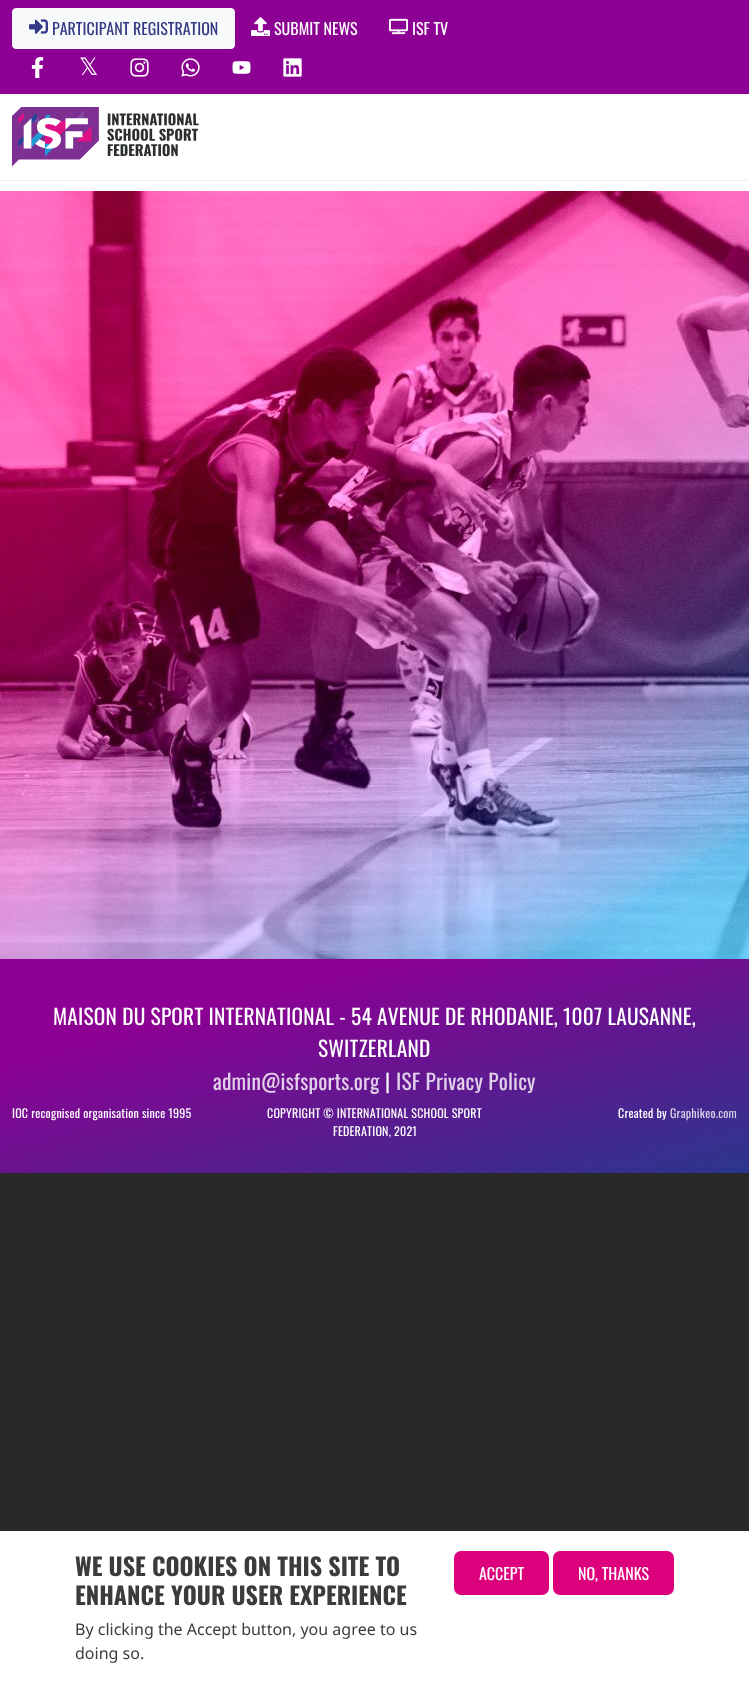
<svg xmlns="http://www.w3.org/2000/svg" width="749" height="1691">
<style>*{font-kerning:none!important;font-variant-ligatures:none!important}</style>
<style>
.a{font:16px Oswald;fill:#333985}
.b{font:16px Oswald;fill:#fff}
.c{font:24px DejaVu Sans;fill:#fff}
.d{font:21.4px Oswald;letter-spacing:0.2px;fill:#fff}
.e{font:21.4px Oswald;letter-spacing:0.2px;fill:#e2cfe9}
.f{font:12px Oswald;letter-spacing:0.2px;fill:#fff}
.g{font:12px Oswald;letter-spacing:0.2px;fill:#d9d4e8}
.h{font:bold 24px Oswald;fill:#3b3b3b}
.i{font:16px Noto Sans;fill:#3b3b3b}
</style>
<defs>
<linearGradient id="g1" gradientUnits="userSpaceOnUse" x1="323" y1="873" x2="426" y2="1259"><stop offset="0.25" stop-color="#8c0093"/><stop offset="1" stop-color="#2b368d"/></linearGradient>
</defs>
<rect width="100%" height="100%" fill="#292929"/>
<path fill="#fff" d="M0 181h749v10H0z"/>
<path fill="#8c0093" d="M0 0h749v94H0z"/>
<rect fill="#f8f9fa" stroke="#f8f9fa" x="12.5" y="8.5" width="222" height="40" rx="3.5"/>
<image href="1.png" x="29" y="19" width="19" height="15"/>
<image href="2.png" x="251" y="17" width="19" height="19"/>
<image href="3.png" x="389" y="18" width="19" height="17"/>
<image href="4.png" x="31" y="57" width="13" height="21"/>
<image href="5.png" x="130" y="58" width="19" height="19"/>
<image href="6.png" x="181" y="58" width="19" height="19"/>
<image href="7.png" x="232" y="61" width="19" height="13"/>
<image href="8.png" x="283" y="58" width="19" height="19"/>
<path fill="#fff" d="M0 94h749v86H0z"/>
<path fill="#efefef" d="M0 180h749v1H0z"/>
<image href="9.png" x="12" y="107" width="187" height="60"/>
<image href="10.png" x="0" y="191" width="749" height="768"/>
<path fill="url(#g1)" d="M0 959h749v214H0z"/>
<path fill="#fff" d="M0 1531h749v160H0z"/>
<rect fill="#dd007c" x="454" y="1551" width="95" height="44" rx="7"/>
<rect fill="#dd007c" x="553" y="1551" width="121" height="44" rx="7"/>
<text class="a" x="52" y="35">PARTICIPANT REGISTRATION</text>
<text class="b" x="274" y="35">SUBMIT NEWS</text>
<text class="b" x="412" y="35">ISF TV</text>
<text class="c" x="79" y="75">𝕏</text>
<text class="d" x="53" y="1025">MAISON DU SPORT INTERNATIONAL - 54 AVENUE DE RHODANIE, 1007 LAUSANNE,</text>
<text class="d" x="318" y="1057">SWITZERLAND</text>
<text class="e" x="213" y="1090">admin@isfsports.org</text>
<text class="d" x="385" y="1090">|</text>
<text class="e" x="396" y="1090">ISF Privacy Policy</text>
<text class="f" x="12" y="1118">IOC recognised organisation since 1995</text>
<text class="f" x="267" y="1118">COPYRIGHT © INTERNATIONAL SCHOOL SPORT</text>
<text class="f" x="333" y="1136">FEDERATION, 2021</text>
<text class="f" x="618" y="1118">Created by</text>
<text class="g" x="670" y="1118">Graphikeo.com</text>
<text class="h" x="75" y="1576">WE USE COOKIES ON THIS SITE TO</text>
<text class="h" x="75" y="1605">ENHANCE YOUR USER EXPERIENCE</text>
<text class="i" x="75" y="1635">By clicking the Accept button, you agree to us</text>
<text class="i" x="75" y="1659">doing so.</text>
<text class="b" x="479" y="1580">ACCEPT</text>
<text class="b" x="578" y="1580">NO, THANKS</text>
</svg>
